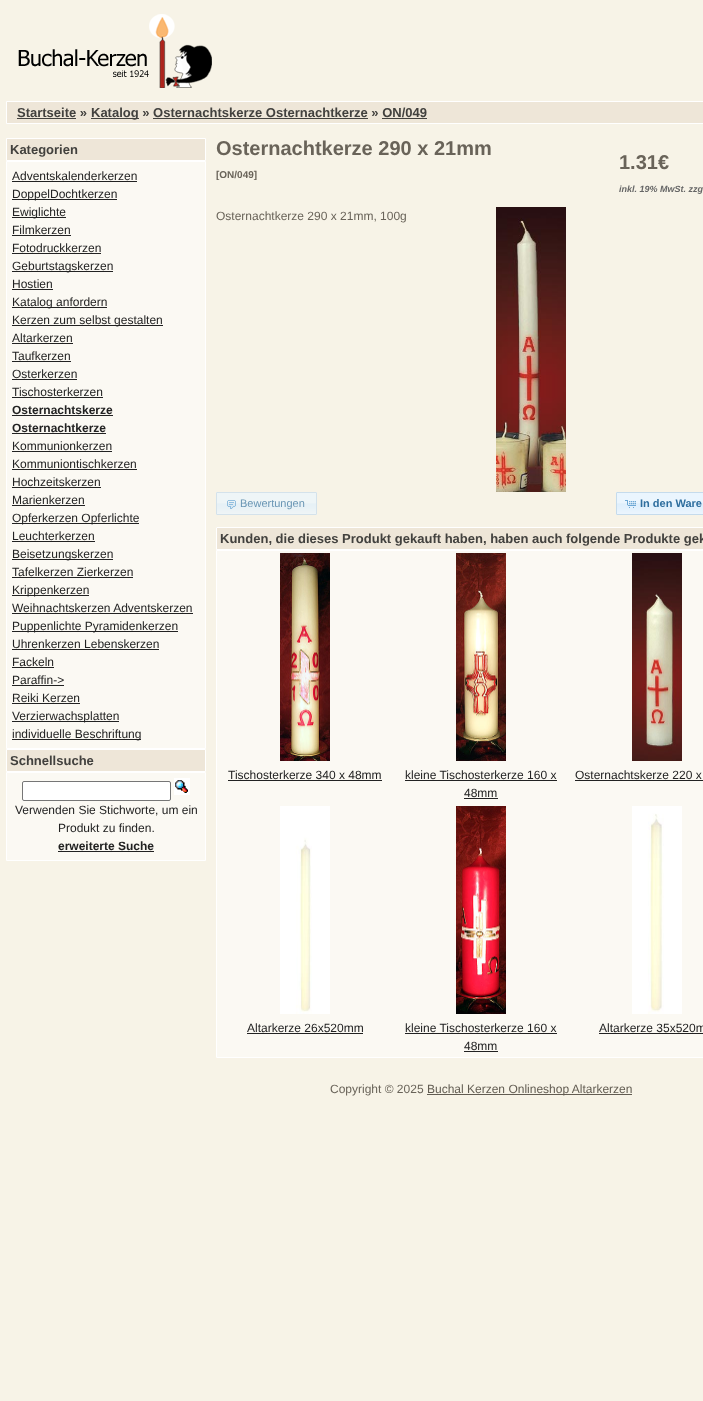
<svg xmlns="http://www.w3.org/2000/svg" width="703" height="1401">
<style>
.a{font:bold 13px Liberation Sans;fill:#42413e}
.b{font:12px Liberation Sans;fill:#222}
.c{font:bold 12px Liberation Sans;fill:#222}
.d{font:bold 20px Liberation Sans;fill:#696359}
.e{font:bold 10px Liberation Sans;fill:#696359}
.f{font:italic bold 9px Liberation Sans;fill:#666}
.g{font:12px Liberation Sans;fill:#696359}
.h{font:11px Liberation Sans;fill:#6a96b4}
.i{font:bold 11px Liberation Sans;fill:#2e6e9e}
.j{font:12px Liberation Sans;fill:#625c52}
</style>
<rect width="100%" height="100%" fill="#f7f3e7"/>
<image href="1.png" x="18" y="14" width="194" height="74"/>
<path fill="#eee6d8" stroke="#fff" d="M6.5 101.5h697v22H6.5z"/>
<path fill="#42413e" d="M17 118h59v1H17z"/>
<path fill="#42413e" d="M91 118h48v1H91z"/>
<path fill="#42413e" d="M153 118h215v1H153z"/>
<path fill="#42413e" d="M382 118h45v1H382z"/>
<path fill="#eee6d8" stroke="#fff" d="M6.5 138.5h199v22H6.5z"/>
<path fill="#fbf9f3" stroke="#fff" d="M6.5 161.5h199v587H6.5z"/>
<path fill="#222" d="M12 181h125v1H12z"/>
<path fill="#222" d="M12 199h105v1H12z"/>
<path fill="#222" d="M12 217h54v1H12z"/>
<path fill="#222" d="M12 235h59v1H12z"/>
<path fill="#222" d="M12 253h89v1H12z"/>
<path fill="#222" d="M12 271h101v1H12z"/>
<path fill="#222" d="M12 289h41v1H12z"/>
<path fill="#222" d="M12 307h95v1H12z"/>
<path fill="#222" d="M12 325h151v1H12z"/>
<path fill="#222" d="M12 343h61v1H12z"/>
<path fill="#222" d="M12 361h59v1H12z"/>
<path fill="#222" d="M12 379h65v1H12z"/>
<path fill="#222" d="M12 397h91v1H12z"/>
<path fill="#222" d="M12 415h101v1H12z"/>
<path fill="#222" d="M12 433h94v1H12z"/>
<path fill="#222" d="M12 451h100v1H12z"/>
<path fill="#222" d="M12 469h125v1H12z"/>
<path fill="#222" d="M12 487h89v1H12z"/>
<path fill="#222" d="M12 505h73v1H12z"/>
<path fill="#222" d="M12 523h127v1H12z"/>
<path fill="#222" d="M12 541h83v1H12z"/>
<path fill="#222" d="M12 559h101v1H12z"/>
<path fill="#222" d="M12 577h121v1H12z"/>
<path fill="#222" d="M12 595h77v1H12z"/>
<path fill="#222" d="M12 613h181v1H12z"/>
<path fill="#222" d="M12 631h166v1H12z"/>
<path fill="#222" d="M12 649h147v1H12z"/>
<path fill="#222" d="M12 667h42v1H12z"/>
<path fill="#222" d="M12 685h52v1H12z"/>
<path fill="#222" d="M12 703h68v1H12z"/>
<path fill="#222" d="M12 721h107v1H12z"/>
<path fill="#222" d="M12 739h129v1H12z"/>
<path fill="#eee6d8" stroke="#fff" d="M6.5 749.5h199v22H6.5z"/>
<path fill="#fbf9f3" stroke="#fff" d="M6.5 772.5h199v88H6.5z"/>
<rect fill="#fff" stroke="#767676" x="22.5" y="781.5" width="148" height="19" rx="1.5"/>
<image href="2.png" x="174" y="778" width="16" height="17"/>
<path fill="#222" d="M58 851h96v1H58z"/>
<image href="3.png" x="496" y="207" width="70" height="285"/>
<image href="4.png" x="216" y="492" width="101" height="23"/>
<rect fill="none" stroke="#d4e2eb" x="216.5" y="492.5" width="100" height="22" rx="0.5"/>
<image href="5.png" x="227" y="500" width="9" height="9"/>
<image href="6.png" x="616" y="492" width="87" height="23"/>
<rect fill="none" stroke="#c5dbec" x="616.5" y="492.5" width="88" height="22" rx="0.5"/>
<image href="7.png" x="625" y="500" width="11" height="8"/>
<path fill="#eee6d8" d="M216 527h487v22H216z"/>
<path fill="none" stroke="#fff" d="M217 527.5h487c.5 0 .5 0 .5 .5v21.5h-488v-21.5c0-.5 0-.5 .5-.5z"/>
<path fill="#fbf9f3" stroke="#fff" d="M216.5 550.5h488v506.5c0 .5 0 .5-.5 .5h-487c-.5 0-.5 0-.5-.5z"/>
<image href="8.png" x="280" y="553" width="50" height="208"/>
<path fill="#222" d="M228 780h154v1H228z"/>
<image href="9.png" x="456" y="553" width="50" height="208"/>
<path fill="#222" d="M405 780h152v1H405z"/>
<path fill="#222" d="M464 798h34v1H464z"/>
<image href="10.png" x="632" y="553" width="50" height="208"/>
<path fill="#222" d="M575 780h128v1H575z"/>
<image href="11.png" x="280" y="806" width="50" height="208"/>
<path fill="#222" d="M247 1033h116v1H247z"/>
<image href="12.png" x="456" y="806" width="50" height="208"/>
<path fill="#222" d="M405 1033h152v1H405z"/>
<path fill="#222" d="M464 1051h34v1H464z"/>
<image href="13.png" x="632" y="806" width="50" height="208"/>
<path fill="#222" d="M599 1033h104v1H599z"/>
<path fill="#625c52" d="M427 1094h205v1H427z"/>
<text class="a" x="17" y="117">Startseite »</text>
<text class="a" x="91" y="117">Katalog » Osternachtskerze Osternachtkerze » ON/049</text>
<text class="a" x="10" y="154">Kategorien</text>
<text class="b" x="12" y="180">Adventskalenderkerzen</text>
<text class="b" x="12" y="198">DoppelDochtkerzen</text>
<text class="b" x="12" y="216">Ewiglichte</text>
<text class="b" x="12" y="234">Filmkerzen</text>
<text class="b" x="12" y="252">Fotodruckkerzen</text>
<text class="b" x="12" y="270">Geburtstagskerzen</text>
<text class="b" x="12" y="288">Hostien</text>
<text class="b" x="12" y="306">Katalog anfordern</text>
<text class="b" x="12" y="324">Kerzen zum selbst gestalten</text>
<text class="b" x="12" y="342">Altarkerzen</text>
<text class="b" x="12" y="360">Taufkerzen</text>
<text class="b" x="12" y="378">Osterkerzen</text>
<text class="b" x="12" y="396">Tischosterkerzen</text>
<text class="c" x="12" y="414">Osternachtskerze</text>
<text class="c" x="12" y="432">Osternachtkerze</text>
<text class="b" x="12" y="450">Kommunionkerzen</text>
<text class="b" x="12" y="468">Kommuniontischkerzen</text>
<text class="b" x="12" y="486">Hochzeitskerzen</text>
<text class="b" x="12" y="504">Marienkerzen</text>
<text class="b" x="12" y="522">Opferkerzen Opferlichte</text>
<text class="b" x="12" y="540">Leuchterkerzen</text>
<text class="b" x="12" y="558">Beisetzungskerzen</text>
<text class="b" x="12" y="576">Tafelkerzen Zierkerzen</text>
<text class="b" x="12" y="594">Krippenkerzen</text>
<text class="b" x="12" y="612">Weihnachtskerzen Adventskerzen</text>
<text class="b" x="12" y="630">Puppenlichte Pyramidenkerzen</text>
<text class="b" x="12" y="648">Uhrenkerzen Lebenskerzen</text>
<text class="b" x="12" y="666">Fackeln</text>
<text class="b" x="12" y="684">Paraffin-&gt;</text>
<text class="b" x="12" y="702">Reiki Kerzen</text>
<text class="b" x="12" y="720">Verzierwachsplatten</text>
<text class="b" x="12" y="738">individuelle Beschriftung</text>
<text class="a" x="10" y="765">Schnellsuche</text>
<text class="b" x="15" y="814">Verwenden Sie Stichworte, um ein</text>
<text class="b" x="58" y="832">Produkt zu finden.</text>
<text class="c" x="58" y="850">erweiterte Suche</text>
<text class="d" x="216" y="155">Osternachtkerze 290 x 21mm</text>
<text class="e" x="216" y="178">[ON/049]</text>
<text class="d" x="619" y="169">1.31€</text>
<text class="f" x="619" y="192">inkl. 19% MwSt. zzg</text>
<text class="g" x="216" y="220">Osternachtkerze 290 x 21mm, 100g</text>
<text class="h" x="240" y="507">Bewertungen</text>
<text class="i" x="640" y="507">In den Ware</text>
<text class="a" x="220" y="543">Kunden, die dieses Produkt gekauft haben, haben auch folgende Produkte gek</text>
<text class="b" x="228" y="779">Tischosterkerze 340 x 48mm</text>
<text class="b" x="405" y="779">kleine Tischosterkerze 160 x</text>
<text class="b" x="464" y="797">48mm</text>
<text class="b" x="575" y="779">Osternachtskerze 220 x</text>
<text class="b" x="247" y="1032">Altarkerze 26x520mm</text>
<text class="b" x="405" y="1032">kleine Tischosterkerze 160 x</text>
<text class="b" x="464" y="1050">48mm</text>
<text class="b" x="599" y="1032">Altarkerze 35x520m</text>
<text class="g" x="330" y="1093">Copyright © 2025</text>
<text class="j" x="427" y="1093">Buchal Kerzen Onlineshop Altarkerzen</text>
</svg>
